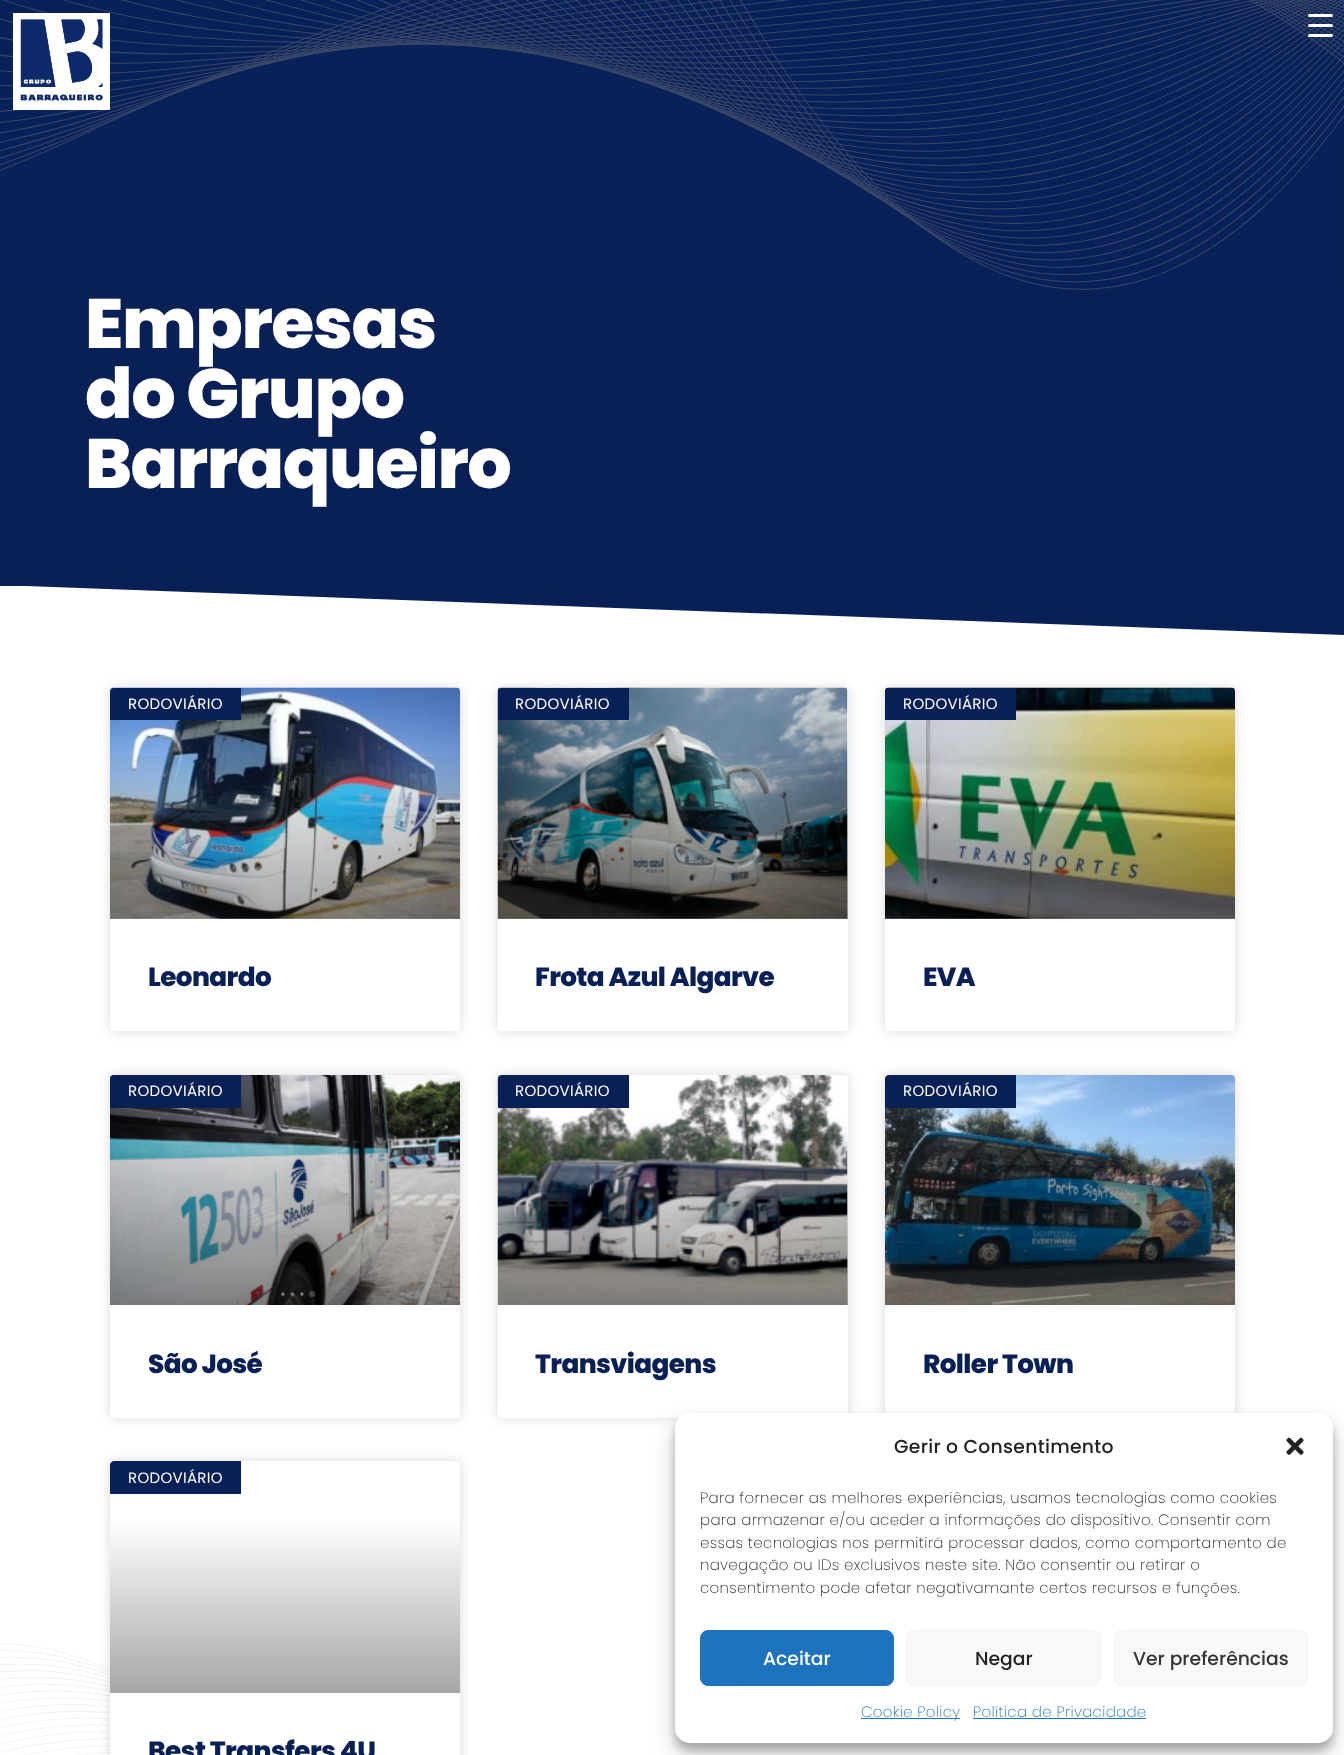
<svg xmlns="http://www.w3.org/2000/svg" width="1344" height="1755">
<style>
.a{font:800 70px Poppins;letter-spacing:-1.4px;fill:#fff}
.b{font:15px Poppins;letter-spacing:0.3px;fill:#fff}
.c{font:800 26.25px Poppins;letter-spacing:-0.6px;fill:#092056}
.d{font:500 18.75px Poppins;letter-spacing:0.3px;fill:#222}
.e{font:200 15px Poppins;letter-spacing:0.3px;fill:#222}
.f{font:500 18.75px Poppins;fill:#fff}
.g{font:500 18.75px Poppins;fill:#222}
.h{font:500 18.75px Poppins;fill:#333}
.i{font:200 15px Poppins;letter-spacing:0.3px;fill:#1e73be}
</style>
<defs>
<clipPath id="clip1"><path d="M0 586h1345v53H0z"/></clipPath>
<clipPath id="clip2"><path d="M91 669h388v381h-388zm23 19h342c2 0 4 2 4 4v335c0 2-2 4-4 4h-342c-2 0-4-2-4-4v-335c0-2 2-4 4-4z" clip-rule="evenodd"/></clipPath>
<linearGradient id="g1" gradientUnits="userSpaceOnUse" x1="285" y1="919" x2="285" y2="688"><stop offset="0" stop-color="#000" stop-opacity="0.35"/><stop offset="0.75" stop-color="#000" stop-opacity="0"/></linearGradient>
<linearGradient id="g2" gradientUnits="userSpaceOnUse" x1="673" y1="919" x2="673" y2="688"><stop offset="0" stop-color="#000" stop-opacity="0.35"/><stop offset="0.75" stop-color="#000" stop-opacity="0"/></linearGradient>
<clipPath id="clip3"><path d="M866 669h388v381h-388zm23 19h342c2 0 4 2 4 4v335c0 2-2 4-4 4h-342c-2 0-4-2-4-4v-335c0-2 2-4 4-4z" clip-rule="evenodd"/></clipPath>
<linearGradient id="g3" gradientUnits="userSpaceOnUse" x1="1060" y1="919" x2="1060" y2="688"><stop offset="0" stop-color="#000" stop-opacity="0.35"/><stop offset="0.75" stop-color="#000" stop-opacity="0"/></linearGradient>
<linearGradient id="g4" gradientUnits="userSpaceOnUse" x1="285" y1="1305" x2="285" y2="1075"><stop offset="0" stop-color="#000" stop-opacity="0.35"/><stop offset="0.75" stop-color="#000" stop-opacity="0"/></linearGradient>
<linearGradient id="g5" gradientUnits="userSpaceOnUse" x1="673" y1="1305" x2="673" y2="1075"><stop offset="0" stop-color="#000" stop-opacity="0.35"/><stop offset="0.75" stop-color="#000" stop-opacity="0"/></linearGradient>
<linearGradient id="g6" gradientUnits="userSpaceOnUse" x1="1060" y1="1305" x2="1060" y2="1075"><stop offset="0" stop-color="#000" stop-opacity="0.35"/><stop offset="0.75" stop-color="#000" stop-opacity="0"/></linearGradient>
<linearGradient id="g7" gradientUnits="userSpaceOnUse" x1="285" y1="1693" x2="285" y2="1461"><stop offset="0" stop-color="#a6a6a6"/><stop offset="0.75" stop-color="#fff"/></linearGradient>
</defs>
<rect width="100%" height="100%" fill="#092056"/>
<image href="1.png" x="0" y="0" width="1344" height="290"/>
<image href="2.png" x="13" y="13" width="97" height="97"/>
<rect fill="#fff" x="1308" y="24" width="25" height="3" rx="1.5"/>
<rect fill="#fff" x="1308" y="14" width="25" height="3" rx="1.5"/>
<rect fill="#fff" x="1308" y="34" width="25" height="3" rx="1.5"/>
<g clip-path="url(#clip1)">
<path fill="#fff" d="M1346 635v3h-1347v-53z"/>
</g>
<path fill="#fff" d="M0 638h1344v1117H0z"/>
<image href="3.png" x="0" y="1643" width="110" height="112"/>
<g clip-path="url(#clip2)">
<rect fill="#00000026" filter="blur(6px)" x="110" y="688" width="350" height="343" rx="4"/>
</g>
<image href="4.png" x="110" y="687" width="350" height="232"/>
<path fill="url(#g1)" d="M110 756h350v163H110z"/>
<path fill="#092056" d="M114 688h127v32h-131v-28c0-2 2-4 4-4z"/>
<rect fill="#00000026" filter="blur(6px)" x="498" y="688" width="350" height="343" rx="4"/>
<rect fill="#fff" x="498" y="688" width="350" height="343" rx="4"/>
<image href="5.png" x="497" y="687" width="351" height="232"/>
<path fill="url(#g2)" d="M498 756h350v163H498z"/>
<path fill="#092056" d="M502 688h127v32h-131v-28c0-2 2-4 4-4z"/>
<g clip-path="url(#clip3)">
<rect fill="#00000026" filter="blur(6px)" x="885" y="688" width="350" height="343" rx="4"/>
</g>
<image href="6.png" x="885" y="687" width="350" height="232"/>
<path fill="url(#g3)" d="M885 756h350v163H885z"/>
<path fill="#092056" d="M889 688h127v32h-131v-28c0-2 2-4 4-4z"/>
<rect fill="#00000026" filter="blur(6px)" x="110" y="1075" width="350" height="343" rx="4"/>
<rect fill="#fff" x="110" y="1075" width="350" height="343" rx="4"/>
<image href="7.png" x="110" y="1075" width="350" height="230"/>
<path fill="url(#g4)" d="M110 1143h350v162H110z"/>
<path fill="#092056" d="M114 1075h127v33h-131v-29c0-2 2-4 4-4z"/>
<rect fill="#00000026" filter="blur(6px)" x="498" y="1075" width="350" height="343" rx="4"/>
<rect fill="#fff" x="498" y="1075" width="350" height="343" rx="4"/>
<image href="8.png" x="497" y="1075" width="351" height="230"/>
<path fill="url(#g5)" d="M498 1143h350v162H498z"/>
<path fill="#092056" d="M502 1075h127v33h-131v-29c0-2 2-4 4-4z"/>
<rect fill="#00000026" filter="blur(6px)" x="885" y="1075" width="350" height="343" rx="4"/>
<rect fill="#fff" x="885" y="1075" width="350" height="343" rx="4"/>
<image href="9.png" x="885" y="1075" width="350" height="230"/>
<path fill="url(#g6)" d="M885 1143h350v162H885z"/>
<path fill="#092056" d="M889 1075h127v33h-131v-29c0-2 2-4 4-4z"/>
<rect fill="#00000026" filter="blur(6px)" x="110" y="1461" width="350" height="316" rx="4"/>
<rect fill="#fff" x="110" y="1461" width="350" height="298" rx="4"/>
<path fill="url(#g7)" d="M114 1461h342c2 0 4 2 4 4v228h-350v-228c0-2 2-4 4-4z"/>
<path fill="#092056" d="M114 1461h127v33h-131v-29c0-2 2-4 4-4z"/>
<rect fill="#0000003b" filter="blur(4px)" x="675" y="1420" width="658" height="330" rx="15"/>
<rect fill="#00000030" filter="blur(12.5px)" x="675" y="1425" width="658" height="330" rx="15"/>
<rect fill="#fff" x="675" y="1413" width="658" height="330" rx="15"/>
<image href="10.png" x="1286" y="1437" width="18" height="18"/>
<rect fill="#1e73be" stroke="#1e73be" x="700.5" y="1630.5" width="193" height="55" rx="7.5"/>
<rect fill="#f9f9f9" stroke="#f2f2f2" x="906.5" y="1630.5" width="194" height="55" rx="7.5"/>
<rect fill="#f9f9f9" stroke="#f2f2f2" x="1114.5" y="1630.5" width="193" height="55" rx="7.5"/>
<path fill="#1e73be" d="M861 1718h99v1H861z"/>
<path fill="#1e73be" d="M973 1718h173v1H973z"/>
<text class="a" x="85" y="348">Empresas</text>
<text class="a" x="85" y="418">do Grupo</text>
<text class="a" x="85" y="488">Barraqueiro</text>
<text class="b" x="128" y="709">RODOVIÁRIO</text>
<text class="c" x="148" y="986">Leonardo</text>
<text class="b" x="515" y="709">RODOVIÁRIO</text>
<text class="c" x="535" y="986">Frota Azul Algarve</text>
<text class="b" x="903" y="709">RODOVIÁRIO</text>
<text class="c" x="923" y="986">EVA</text>
<text class="b" x="128" y="1096">RODOVIÁRIO</text>
<text class="c" x="148" y="1373">São José</text>
<text class="b" x="515" y="1096">RODOVIÁRIO</text>
<text class="c" x="535" y="1373">Transviagens</text>
<text class="b" x="903" y="1096">RODOVIÁRIO</text>
<text class="c" x="923" y="1373">Roller Town</text>
<text class="b" x="128" y="1483">RODOVIÁRIO</text>
<text class="c" x="148" y="1760">Best Transfers 4U</text>
<text class="d" x="894" y="1453">Gerir o Consentimento</text>
<text class="e" x="700" y="1503">Para fornecer as melhores experiências, usamos tecnologias como cookies</text>
<text class="e" x="700" y="1525">para armazenar e/ou aceder a informações do dispositivo. Consentir com</text>
<text class="e" x="700" y="1548">essas tecnologias nos permitirá processar dados, como comportamento de</text>
<text class="e" x="700" y="1570">navegação ou IDs exclusivos neste site. Não consentir ou retirar o</text>
<text class="e" x="700" y="1593">consentimento pode afetar negativamante certos recursos e funções.</text>
<text class="f" x="763" y="1665">Aceitar</text>
<text class="g" x="975" y="1665">Negar</text>
<text class="h" x="1133" y="1665">Ver preferências</text>
<text class="i" x="861" y="1717">Cookie Policy</text>
<text class="i" x="973" y="1717">Política de Privacidade</text>
</svg>
